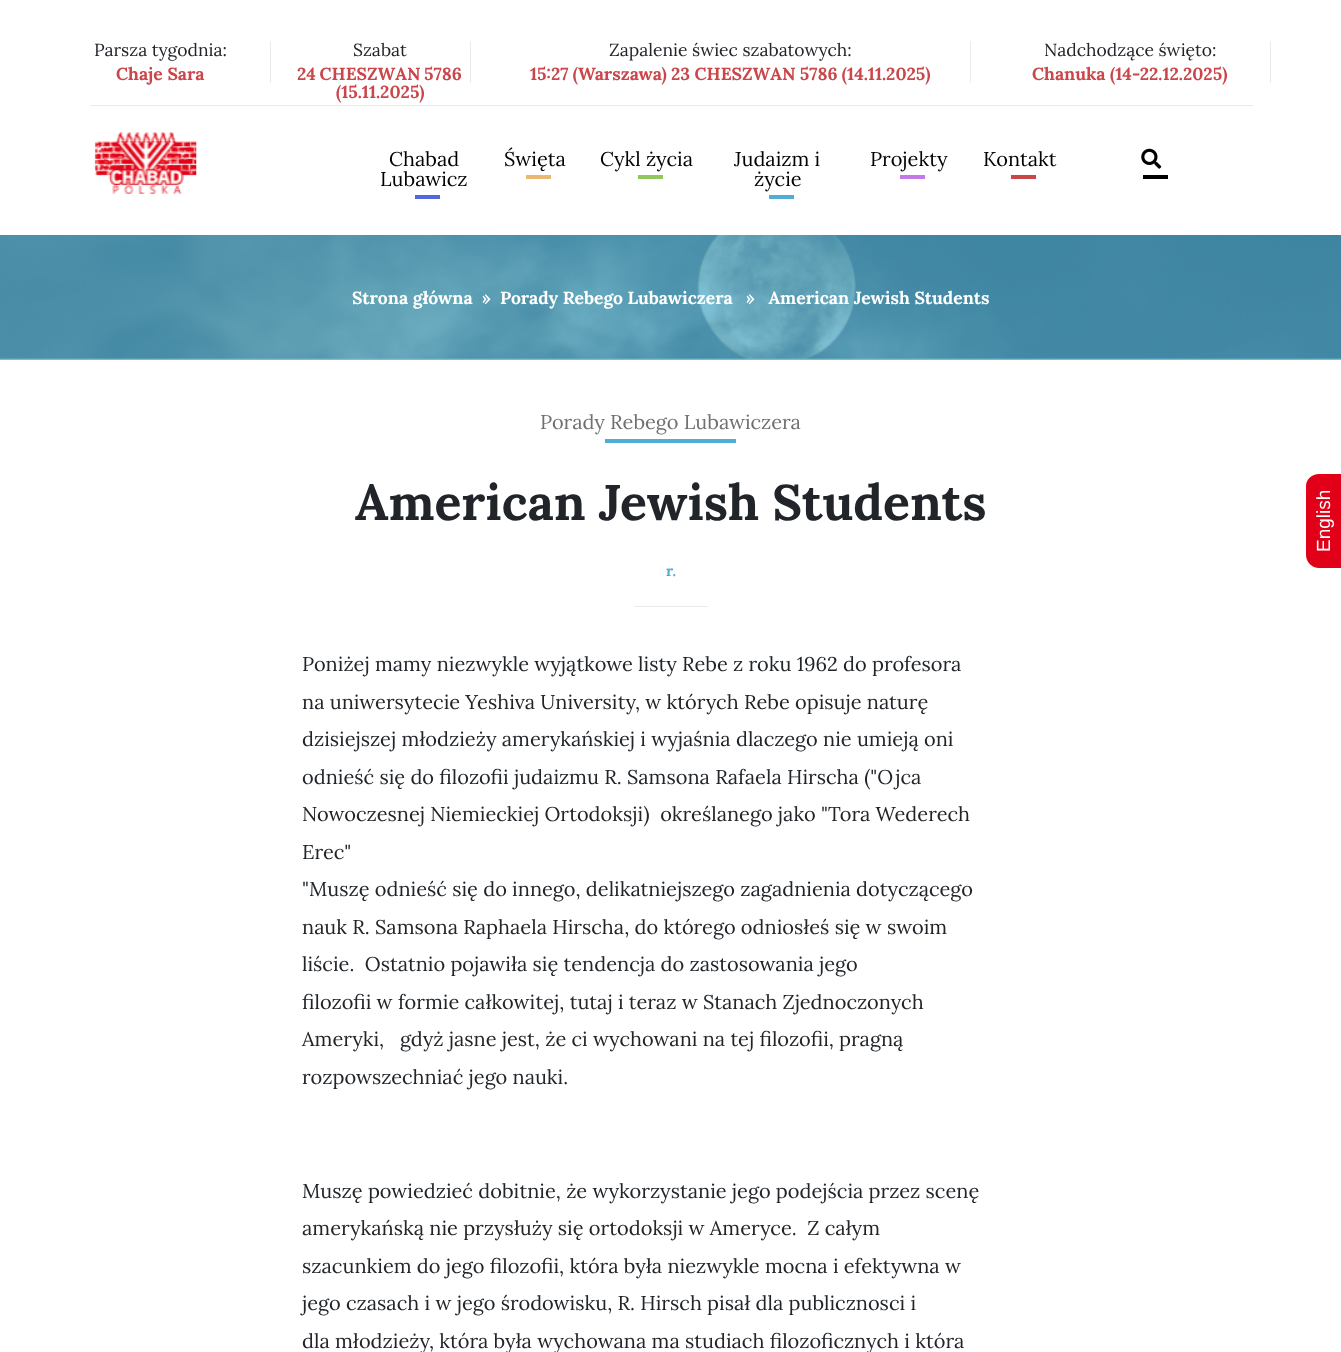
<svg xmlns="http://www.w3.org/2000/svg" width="1341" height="1352">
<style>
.a{font:17.5px Lora;fill:#212529}
.b{font:bold 17.5px Lora;fill:#cb464a}
.c{font:20px Lora;fill:#000}
.d{font:bold 17.5px Lora;fill:#fff}
.e{font:20px Lora;fill:#707070}
.f{font:bold 50px Lora;fill:#212529}
.g{font:bold 15px Lora;fill:#4fadd8}
.h{font:20px Lora;fill:#212529}
.i{font:19px Liberation Sans;fill:#fff}
</style>
<rect width="100%" height="100%" fill="#fff"/>
<path fill="#7bc3e1" d="M0 358h1341v2H0z"/>
<path fill="#ebebeb" d="M90 105h1163v1H90z"/>
<path fill="#ebebeb" d="M270 41h1v42H270z"/>
<path fill="#ebebeb" d="M470 41h1v42H470z"/>
<path fill="#ebebeb" d="M970 41h1v42H970z"/>
<path fill="#ebebeb" d="M1270 41h1v42H1270z"/>
<image href="1.png" x="94" y="132" width="103" height="62"/>
<path fill="#5467de" d="M415 195h25v4H415z"/>
<path fill="#e9b872" d="M526 175h25v4H526z"/>
<path fill="#92c75d" d="M638 175h25v4H638z"/>
<path fill="#4fadd8" d="M769 195h25v4H769z"/>
<path fill="#c778e8" d="M900 175h25v4H900z"/>
<path fill="#cb464a" d="M1011 175h25v4H1011z"/>
<image href="2.png" x="1141" y="148" width="21" height="21"/>
<path fill="#000" d="M1143 175h25v4H1143z"/>
<image href="3.png" x="0" y="235" width="1341" height="125"/>
<path fill="#4fadd8" d="M605 439h131v4H605z"/>
<path fill="#ebebeb" d="M634 606h74v1H634z"/>
<path fill="#e20019" d="M1306 555v-69c0-7 6-12 13-12h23v94h-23c-7 0-13-6-13-13z"/>
<text class="a" x="94" y="56">Parsza tygodnia:</text>
<text class="b" x="116" y="80">Chaje Sara</text>
<text class="a" x="353" y="56">Szabat</text>
<text class="b" x="297" y="80" word-spacing="-1">24 CHESZWAN 5786</text>
<text class="b" x="336" y="98">(15.11.2025)</text>
<text class="a" x="609" y="56">Zapalenie świec szabatowych:</text>
<text class="b" x="530" y="80" word-spacing="-0.25">15:27 (Warszawa) 23 CHESZWAN 5786 (14.11.2025)</text>
<text class="a" x="1044" y="56">Nadchodzące święto:</text>
<text class="b" x="1032" y="80">Chanuka (14-22.12.2025)</text>
<text class="c" x="389" y="166">Chabad</text>
<text class="c" x="380" y="186">Lubawicz</text>
<text class="c" x="504" y="166">Święta</text>
<text class="c" x="600" y="166">Cykl życia</text>
<text class="c" x="734" y="166">Judaizm i</text>
<text class="c" x="754" y="186">życie</text>
<text class="c" x="870" y="166">Projekty</text>
<text class="c" x="983" y="166">Kontakt</text>
<text class="d" x="352" y="304">Strona główna</text>
<text class="d" x="482" y="304">»</text>
<text class="d" x="500" y="304">Porady Rebego Lubawiczera</text>
<text class="d" xml:space="preserve" x="746" y="304">»   American Jewish Students</text>
<text class="e" x="540" y="429">Porady Rebego Lubawiczera</text>
<text class="f" x="355" y="520">American Jewish Students</text>
<text class="g" x="666" y="576">r.</text>
<text class="h" x="302" y="671">Poniżej mamy niezwykle wyjątkowe listy Rebe z roku 1962 do profesora</text>
<text class="h" x="302" y="709">na uniwersytecie Yeshiva University, w których Rebe opisuje naturę</text>
<text class="h" x="302" y="746">dzisiejszej młodzieży amerykańskiej i wyjaśnia dlaczego nie umieją oni</text>
<text class="h" x="302" y="784">odnieść się do filozofii judaizmu R. Samsona Rafaela Hirscha ("Ojca</text>
<text class="h" xml:space="preserve" x="302" y="821">Nowoczesnej Niemieckiej Ortodoksji)  określanego jako "Tora Wederech</text>
<text class="h" x="302" y="859">Erec"</text>
<text class="h" x="302" y="896">"Muszę odnieść się do innego, delikatniejszego zagadnienia dotyczącego</text>
<text class="h" x="302" y="934">nauk R. Samsona Raphaela Hirscha, do którego odniosłeś się w swoim</text>
<text class="h" xml:space="preserve" x="302" y="971">liście.  Ostatnio pojawiła się tendencja do zastosowania jego</text>
<text class="h" x="302" y="1009">filozofii w formie całkowitej, tutaj i teraz w Stanach Zjednoczonych</text>
<text class="h" xml:space="preserve" x="302" y="1046">Ameryki,   gdyż jasne jest, że ci wychowani na tej filozofii, pragną</text>
<text class="h" x="302" y="1084">rozpowszechniać jego nauki.</text>
<text class="h" x="302" y="1198">Muszę powiedzieć dobitnie, że wykorzystanie jego podejścia przez scenę</text>
<text class="h" xml:space="preserve" x="302" y="1235">amerykańską nie przysłuży się ortodoksji w Ameryce.  Z całym</text>
<text class="h" x="302" y="1273">szacunkiem do jego filozofii, która była niezwykle mocna i efektywna w</text>
<text class="h" x="302" y="1310">jego czasach i w jego środowisku, R. Hirsch pisał dla publicznosci i</text>
<text class="h" x="302" y="1348">dla młodzieży, która była wychowana ma studiach filozoficznych i która</text>
<text class="i" x="1330" y="552" transform="rotate(-90 1330 552)">English</text>
</svg>
